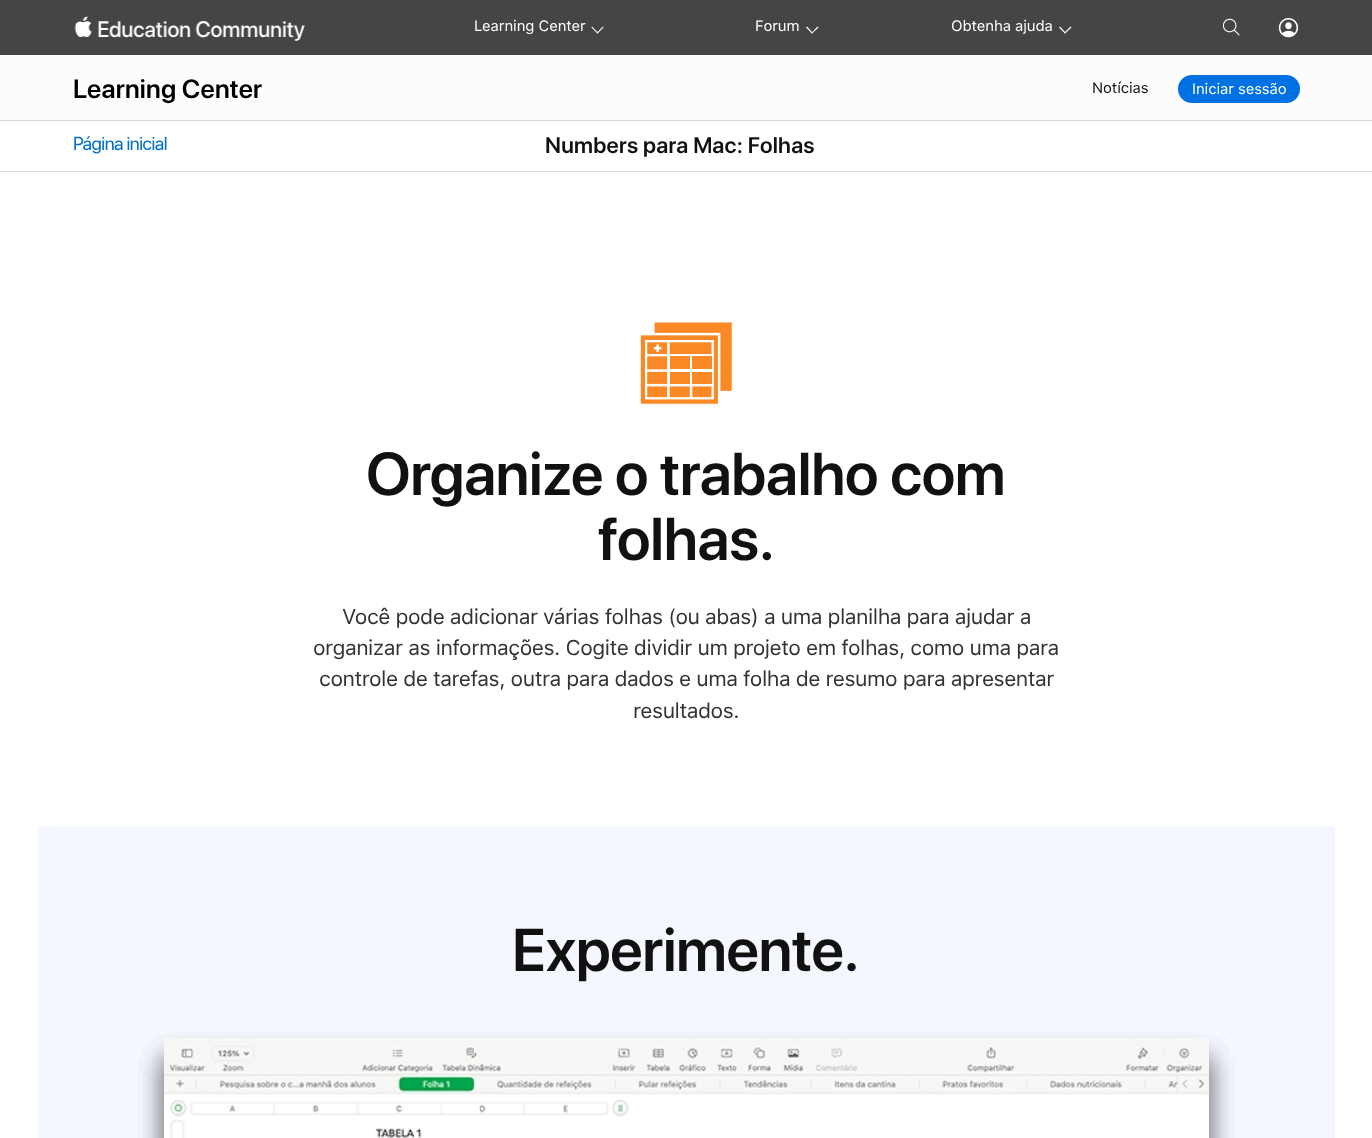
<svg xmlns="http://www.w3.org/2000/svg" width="1372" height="1138">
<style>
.a{font:15px SF Pro Text;letter-spacing:-0.1px;fill:#fff}
.b{font:600 26.25px 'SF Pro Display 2';letter-spacing:0.25px;fill:#000}
.c{font:15px SF Pro Text;letter-spacing:-0.1px;fill:#111}
.d{font:18.75px SF Pro Display;letter-spacing:-0.47px;fill:#0070c9}
.e{font:600 22.5px SF Pro Display;letter-spacing:0.25px;fill:#111}
.f{font:600 60px 'SF Pro Display 2';letter-spacing:-0.2px;fill:#111}
.g{font:21.25px SF Pro Text;letter-spacing:-0.47px;fill:#333}
</style>
<defs>
<clipPath id="clip1"><path d="M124 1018h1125v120h-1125zm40 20h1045v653h-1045z" clip-rule="evenodd"/></clipPath>
</defs>
<rect width="100%" height="100%" fill="#fff"/>
<path fill="#454546" d="M0 0h1372v55H0z"/>
<image href="1.png" x="74" y="16" width="231" height="25"/>
<path fill="#fff" d="M603 26.5l.5 1l-6 6l-1-.5z"/>
<path fill="#fff" d="M592 26.5l6.5 6.5l-1 .5l-6-6z"/>
<path fill="#fff" d="M817.5 26.5l1 1l-6.5 6l-.5-.5z"/>
<path fill="#fff" d="M807 26.5l6 6.5l-1 .5l-6-6z"/>
<path fill="#fff" d="M1070.5 26.5l1 1l-6.5 6l-1-.5z"/>
<path fill="#fff" d="M1060 26.5l6 6.5l-1 .5l-6-6z"/>
<image href="2.png" x="1223" y="18" width="17" height="18"/>
<image href="3.png" x="1278" y="18" width="21" height="20"/>
<path fill="#fcfcfd" d="M0 55h1372v65H0z"/>
<path fill="#d8d8d8" d="M0 120h1372v1H0z"/>
<rect fill="#0071e3" x="1178" y="75" width="122" height="28" rx="14"/>
<path fill="#ddd" d="M0 171h1372v1H0z"/>
<image href="4.png" x="640" y="322" width="92" height="82"/>
<path fill="#f4f7fe" d="M38 826h1297v312H38z"/>
<path fill="#00000026" filter="blur(13px)" d="M164 1058h1045v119H164z"/>
<path fill="#00000026" filter="blur(13px)" d="M164 1058h1045v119H164z"/>
<path fill="#00000026" filter="blur(13px)" d="M164 1058h1045v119H164z"/>
<image href="5.png" x="164" y="1038" width="1045" height="100"/>
<g clip-path="url(#clip1)">
<path fill="#00000026" filter="blur(13px)" d="M164 1058h1045v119H164z"/>
<path fill="#00000026" filter="blur(13px)" d="M164 1058h1045v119H164z"/>
</g>
<image href="6.png" x="170" y="1045" width="1039" height="93"/>
<text class="a" x="474" y="31">Learning Center</text>
<text class="a" x="755" y="31">Forum</text>
<text class="a" x="951" y="31">Obtenha ajuda</text>
<text class="b" x="73" y="98">Learning Center</text>
<text class="c" x="1092" y="93">Notícias</text>
<text class="a" x="1192" y="94">Iniciar sessão</text>
<text class="d" x="73" y="150">Página inicial</text>
<text class="e" x="545" y="153">Numbers para Mac: Folhas</text>
<text class="f" x="366" y="495">Organize o trabalho com</text>
<text class="f" x="598" y="560">folhas.</text>
<text class="g" x="342" y="624">Você pode adicionar várias folhas (ou abas) a uma planilha para ajudar a</text>
<text class="g" x="313" y="655">organizar as informações. Cogite dividir um projeto em folhas, como uma para</text>
<text class="g" x="319" y="686">controle de tarefas, outra para dados e uma folha de resumo para apresentar</text>
<text class="g" x="633" y="718">resultados.</text>
<text class="f" x="512" y="971">Experimente.</text>
</svg>
